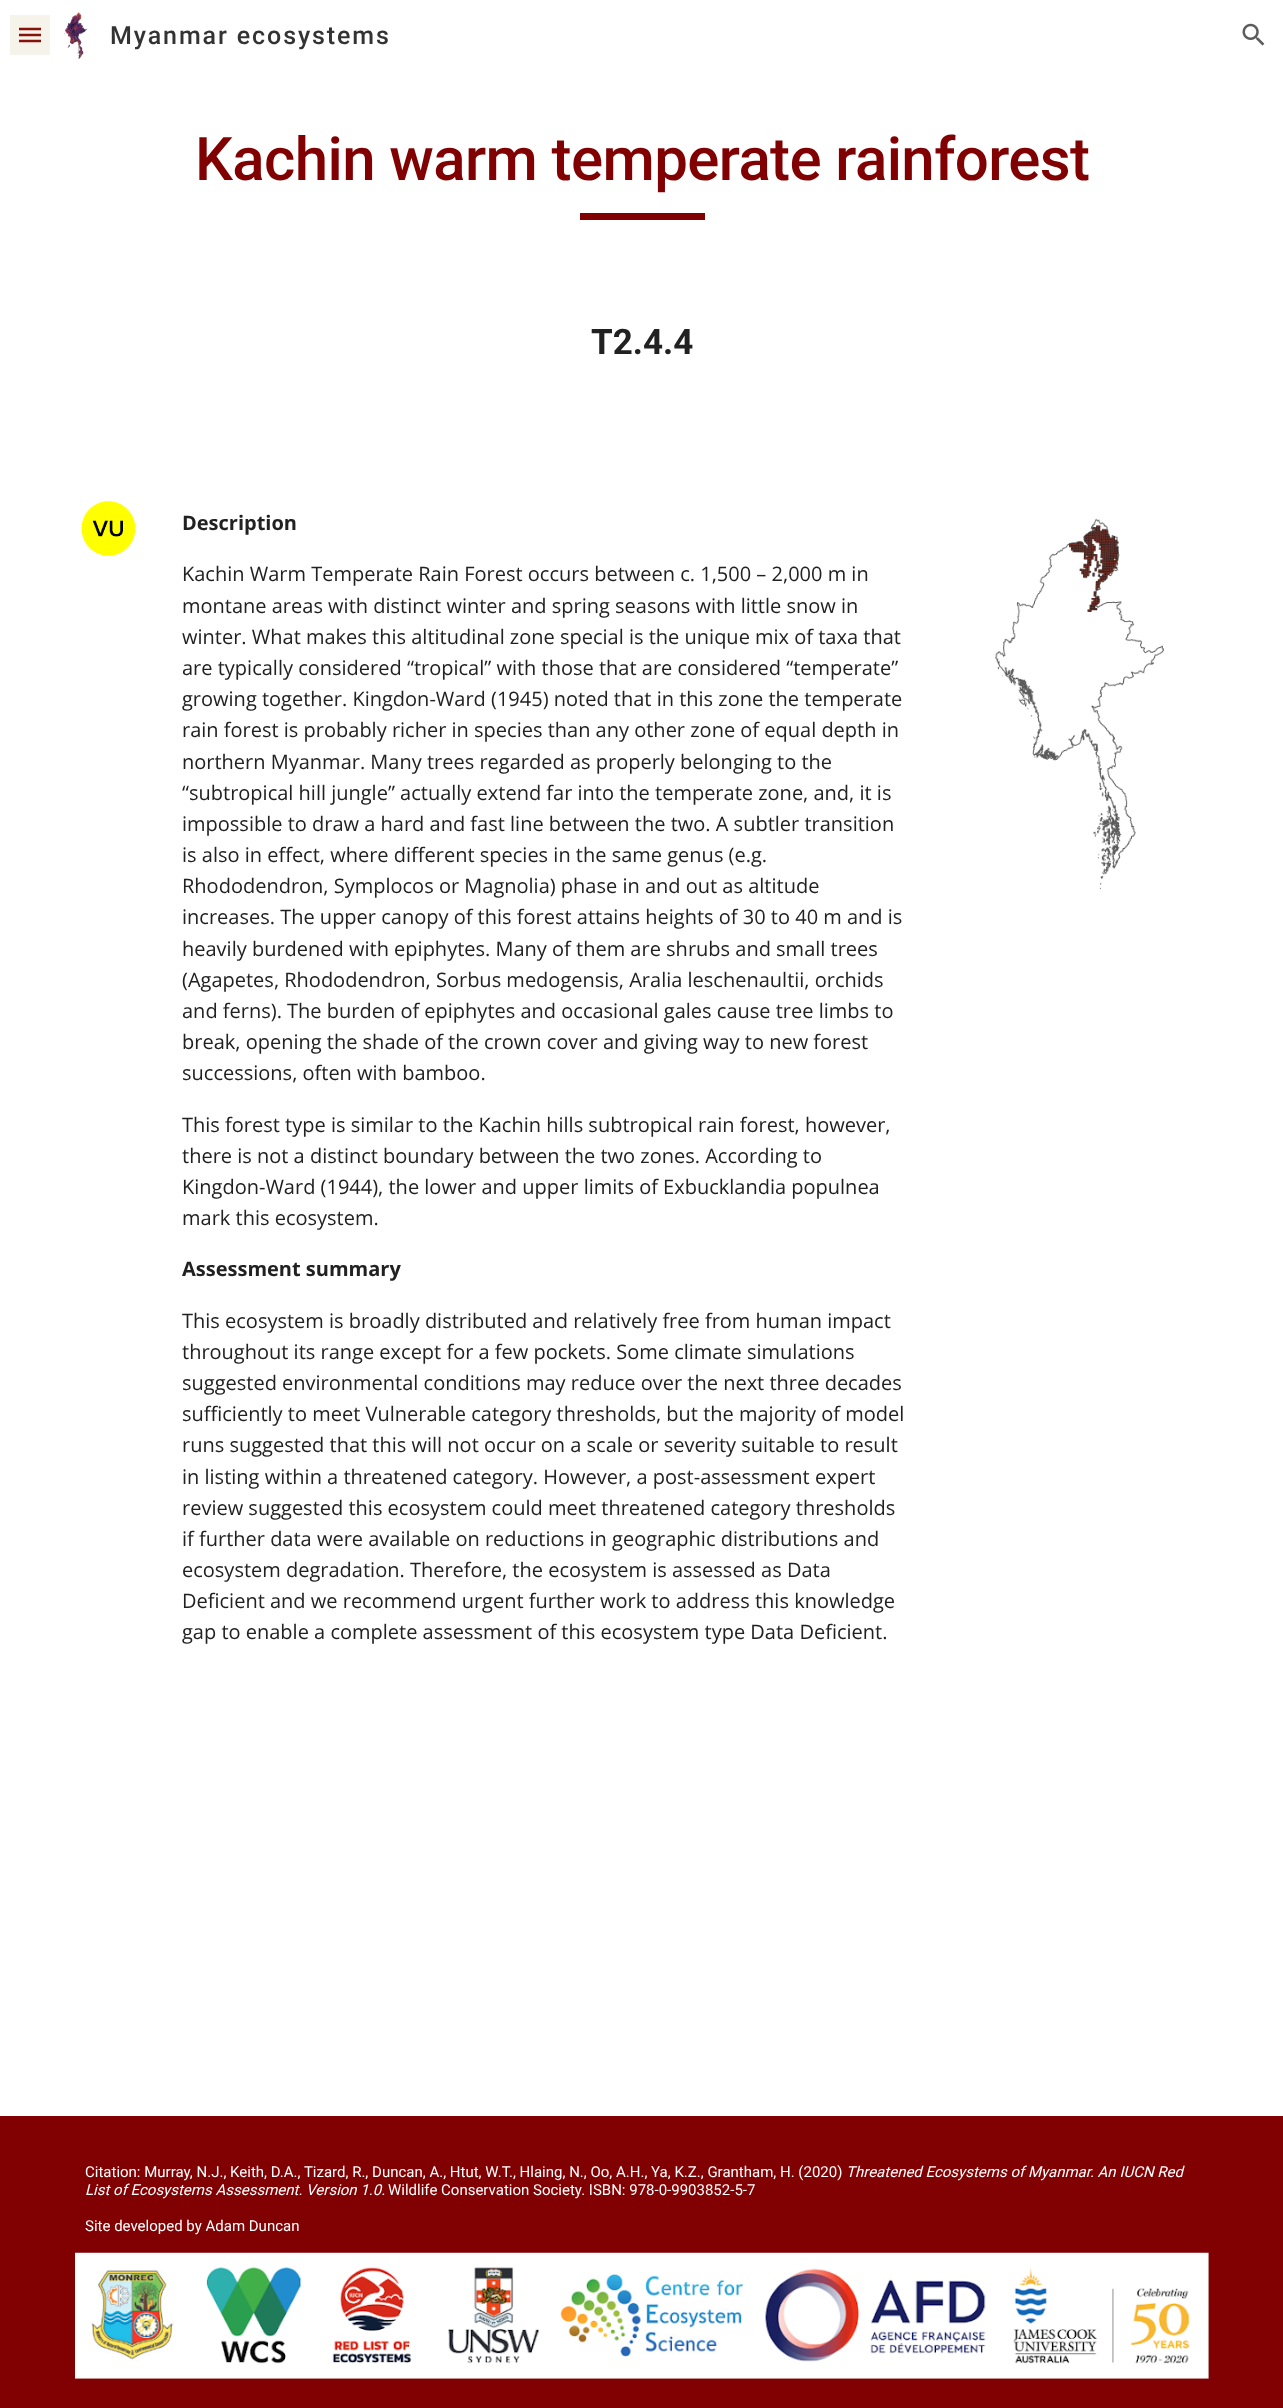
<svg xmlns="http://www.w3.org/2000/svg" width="1283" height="2408">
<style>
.a{font:500 25px Roboto;letter-spacing:1.9px;fill:#333}
.b{font:500 60px Roboto;letter-spacing:-0.6px;fill:#810002}
.c{font:bold 35px Roboto;fill:#212121}
.d{font:bold 20px Open Sans;fill:#212121}
.e{font:20px Open Sans;fill:#212121}
.f{font:15px Roboto;fill:#fff}
.g{font:italic 15px Roboto;fill:#fff}
</style>
<rect width="100%" height="100%" fill="#fff"/>
<path fill="#f6f3ea" d="M10 15h40v40H10z"/>
<path fill="none" stroke="#87120b" stroke-width="2.5" d="M19 29h22m-22 6h22m-22 6h22"/>
<image href="1.png" x="64" y="12" width="24" height="47"/>
<image href="2.png" x="1242" y="23" width="23" height="23"/>
<path fill="#810002" d="M580 213h125v7H580z"/>
<image href="3.png" x="81" y="501" width="55" height="55"/>
<image href="4.png" x="994" y="518" width="170" height="371"/>
<path fill="#810002" d="M0 2116h1283v292H0z"/>
<image href="5.png" x="75" y="2252" width="1134" height="127"/>
<text class="a" x="110" y="44">Myanmar ecosystems</text>
<text class="b" x="195" y="180">Kachin warm temperate rainforest</text>
<text class="c" x="591" y="354">T2.4.4</text>
<text class="d" x="182" y="530">Description</text>
<text class="e" x="182" y="581">Kachin Warm Temperate Rain Forest occurs between c. 1,500 – 2,000 m in</text>
<text class="e" x="182" y="613">montane areas with distinct winter and spring seasons with little snow in</text>
<text class="e" x="182" y="644">winter. What makes this altitudinal zone special is the unique mix of taxa that</text>
<text class="e" x="182" y="675">are typically considered “tropical” with those that are considered “temperate”</text>
<text class="e" x="182" y="706">growing together. Kingdon-Ward (1945) noted that in this zone the temperate</text>
<text class="e" x="182" y="737">rain forest is probably richer in species than any other zone of equal depth in</text>
<text class="e" x="182" y="769">northern Myanmar. Many trees regarded as properly belonging to the</text>
<text class="e" x="182" y="800">“subtropical hill jungle” actually extend far into the temperate zone, and, it is</text>
<text class="e" x="182" y="831">impossible to draw a hard and fast line between the two. A subtler transition</text>
<text class="e" x="182" y="862">is also in effect, where different species in the same genus (e.g.</text>
<text class="e" x="182" y="893">Rhododendron, Symplocos or Magnolia) phase in and out as altitude</text>
<text class="e" x="182" y="924">increases. The upper canopy of this forest attains heights of 30 to 40 m and is</text>
<text class="e" x="182" y="956">heavily burdened with epiphytes. Many of them are shrubs and small trees</text>
<text class="e" x="182" y="987">(Agapetes, Rhododendron, Sorbus medogensis, Aralia leschenaultii, orchids</text>
<text class="e" x="182" y="1018">and ferns). The burden of epiphytes and occasional gales cause tree limbs to</text>
<text class="e" x="182" y="1049">break, opening the shade of the crown cover and giving way to new forest</text>
<text class="e" x="182" y="1080">successions, often with bamboo.</text>
<text class="e" x="182" y="1132">This forest type is similar to the Kachin hills subtropical rain forest, however,</text>
<text class="e" x="182" y="1163">there is not a distinct boundary between the two zones. According to</text>
<text class="e" x="182" y="1194">Kingdon-Ward (1944), the lower and upper limits of Exbucklandia populnea</text>
<text class="e" x="182" y="1225">mark this ecosystem.</text>
<text class="d" x="182" y="1276">Assessment summary</text>
<text class="e" x="182" y="1328">This ecosystem is broadly distributed and relatively free from human impact</text>
<text class="e" x="182" y="1359">throughout its range except for a few pockets. Some climate simulations</text>
<text class="e" x="182" y="1390">suggested environmental conditions may reduce over the next three decades</text>
<text class="e" x="182" y="1421">sufficiently to meet Vulnerable category thresholds, but the majority of model</text>
<text class="e" x="182" y="1452">runs suggested that this will not occur on a scale or severity suitable to result</text>
<text class="e" x="182" y="1484">in listing within a threatened category. However, a post-assessment expert</text>
<text class="e" x="182" y="1515">review suggested this ecosystem could meet threatened category thresholds</text>
<text class="e" x="182" y="1546">if further data were available on reductions in geographic distributions and</text>
<text class="e" x="182" y="1577">ecosystem degradation. Therefore, the ecosystem is assessed as Data</text>
<text class="e" x="182" y="1608">Deficient and we recommend urgent further work to address this knowledge</text>
<text class="e" x="182" y="1639">gap to enable a complete assessment of this ecosystem type Data Deficient.</text>
<text class="f" x="85" y="2177">Citation: Murray, N.J., Keith, D.A., Tizard, R., Duncan, A., Htut, W.T., Hlaing, N., Oo, A.H., Ya, K.Z., Grantham, H. (2020)</text>
<text class="g" x="846" y="2177">Threatened Ecosystems of Myanmar. An IUCN Red</text>
<text class="g" x="85" y="2195">List of Ecosystems Assessment. Version 1.0.</text>
<text class="f" x="388" y="2195">Wildlife Conservation Society. ISBN: 978-0-9903852-5-7</text>
<text class="f" x="85" y="2231">Site developed by Adam Duncan</text>
</svg>
